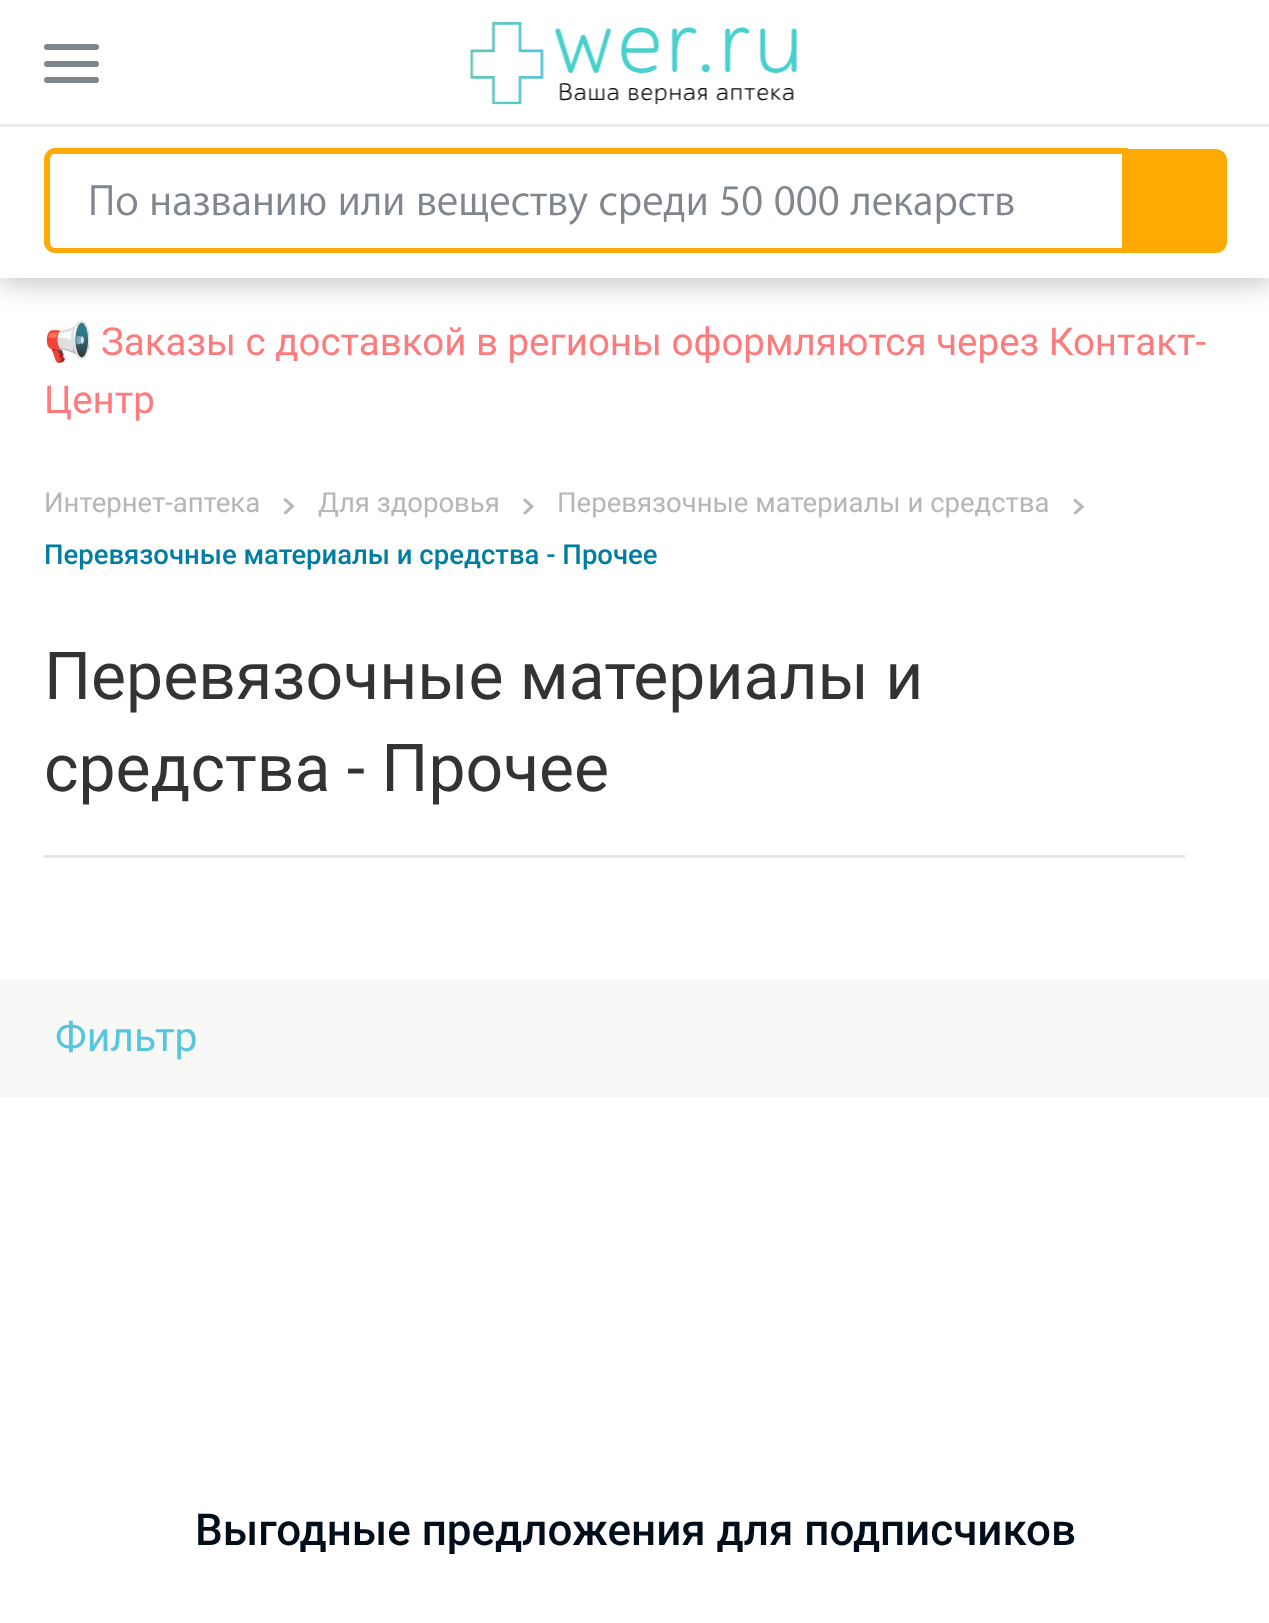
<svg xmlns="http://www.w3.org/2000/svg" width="1269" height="1623">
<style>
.a{font:44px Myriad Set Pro;fill:#80868d}
.b{font:38.5px Noto Color Emoji;fill:#fd7b7c}
.c{font:38.5px Roboto;fill:#fd7b7c}
.d{font:27.5px Roboto;fill:#b3b6ba}
.e{font:500 27.5px Roboto;fill:#007ea1}
.f{font:66px Roboto;fill:#333}
.g{font:41px Roboto;fill:#56c5de}
.h{font:500 44px Roboto;fill:#000d1a}
</style>
<rect width="100%" height="100%" fill="#fff"/>
<path fill="#000d1a40" filter="blur(14px)" d="M0 6h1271v277H0z"/>
<path fill="#fff" d="M0 0h1269v278H0z"/>
<rect fill="#80868d" x="44" y="61" width="55" height="6" rx="3"/>
<rect fill="#80868d" x="44" y="44" width="55" height="6" rx="3"/>
<rect fill="#80868d" x="44" y="77" width="55" height="6" rx="3"/>
<image href="1.png" x="470" y="22" width="328" height="83"/>
<path fill="#ebedef" d="M0 124h1269v3H0z"/>
<path fill="#ffa903" fill-rule="evenodd" d="M55 148h1073v105h-1073c-6 0-11-5-11-11v-82c0-7 5-12 11-12zm0 6h1073v94h-1073c-3 0-5-3-5-6v-82c0-4 2-6 5-6z"/>
<path fill="#ffa903" d="M1122 149h94c6 0 11 5 11 11v82c0 6-5 11-11 11h-94z"/>
<image href="2.png" x="283" y="498" width="11" height="17"/>
<image href="3.png" x="523" y="498" width="11" height="17"/>
<image href="4.png" x="1073" y="498" width="11" height="17"/>
<path fill="#e5e5e5" d="M44 855h1141v3H44z"/>
<path fill="#f8f8f6" d="M0 979h1269v118H0z"/>
<text class="a" x="88" y="215">По названию или веществу среди 50 000 лекарств</text>
<text class="b" x="44" y="355">📢</text>
<text class="c" x="101" y="355">Заказы с доставкой в регионы оформляются через Контакт-</text>
<text class="c" x="44" y="413">Центр</text>
<text class="d" x="44" y="512">Интернет-аптека</text>
<text class="d" x="318" y="512">Для здоровья</text>
<text class="d" x="557" y="512">Перевязочные материалы и средства</text>
<text class="e" x="44" y="564">Перевязочные материалы и средства - Прочее</text>
<text class="f" x="44" y="699">Перевязочные материалы и</text>
<text class="f" x="44" y="791">средства - Прочее</text>
<text class="g" x="55" y="1051">Фильтр</text>
<text class="h" x="195" y="1545">Выгодные предложения для подписчиков</text>
</svg>
